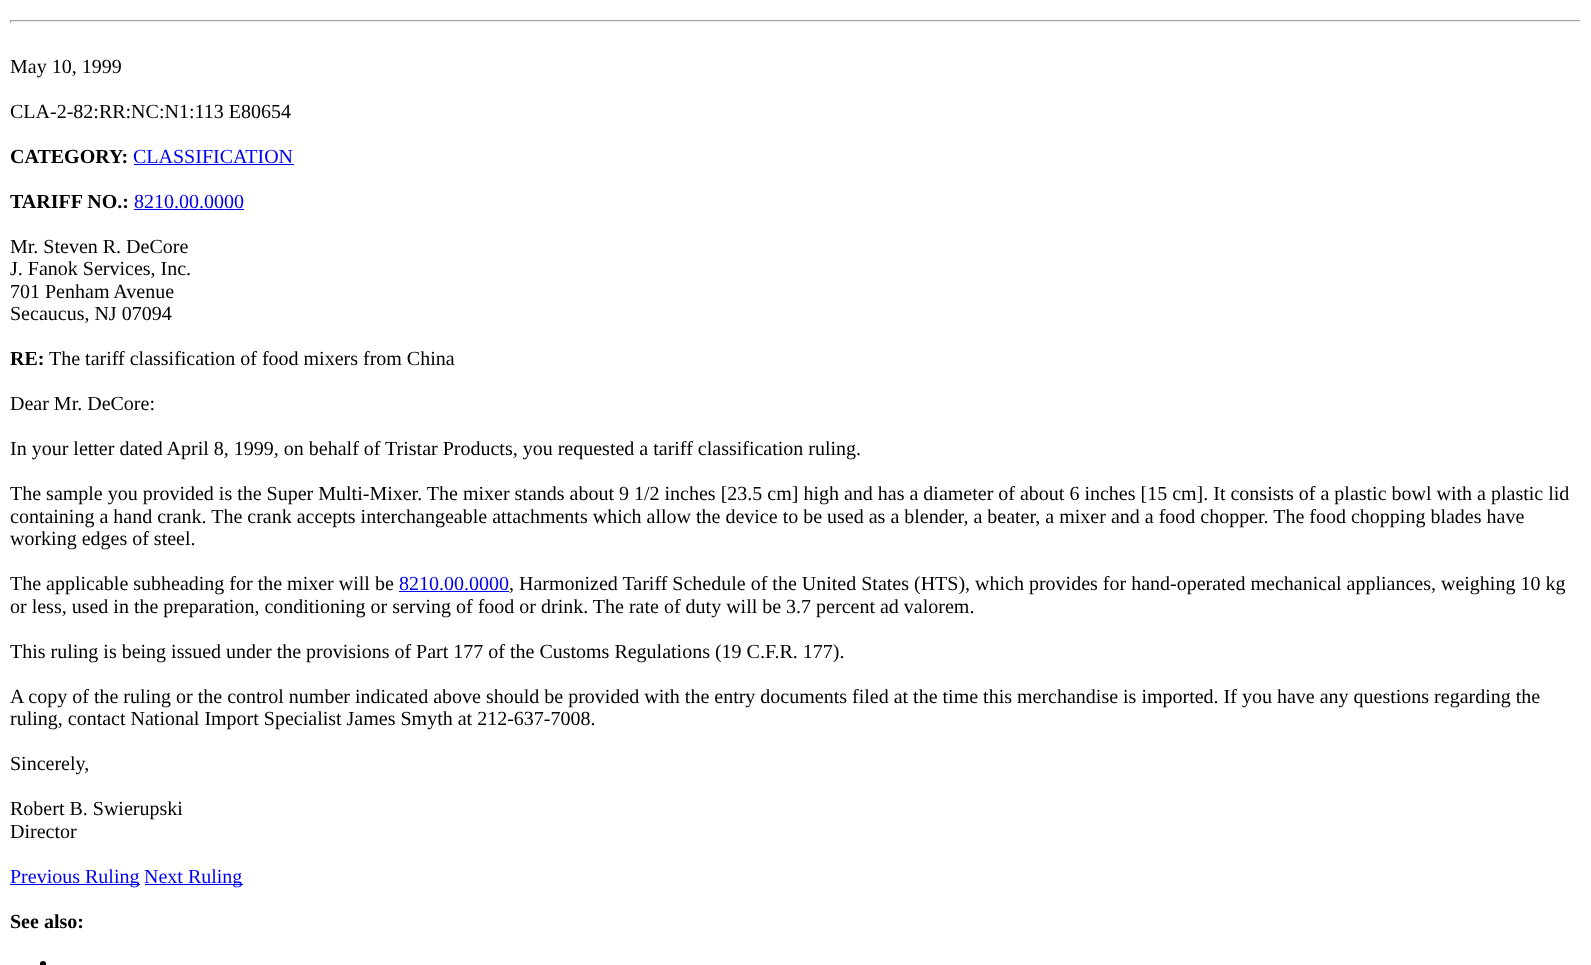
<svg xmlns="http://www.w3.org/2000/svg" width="1591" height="965">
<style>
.a{font:20px Liberation Serif;fill:#000}
.b{font:bold 20px Liberation Serif;fill:#000}
.c{font:20px Liberation Serif;fill:#00e}
</style>
<rect width="100%" height="100%" fill="#fff"/>
<path fill="#9f9f9f" d="M10 20h1571v1H10z"/>
<path fill="#eee" d="M1580 20h1v3H1580z"/>
<path fill="#eee" d="M10 21h1571v1H10z"/>
<path fill="#9f9f9f" d="M10 20h1v3H10z"/>
<path fill="#00e" d="M134 164h160v1H134z"/>
<path fill="#00e" d="M134 209h110v1H134z"/>
<path fill="#00e" d="M399 591h110v1H399z"/>
<path fill="#00e" d="M10 884h130v1H10z"/>
<path fill="#00e" d="M145 884h98v1H145z"/>
<rect fill="#000" x="40" y="961" width="6" height="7" rx="3"/>
<text class="a" x="10" y="73">May 10, 1999</text>
<text class="a" x="10" y="118">CLA-2-82:RR:NC:N1:113 E80654</text>
<text class="b" x="10" y="163">CATEGORY:</text>
<text class="c" x="133" y="163">CLASSIFICATION</text>
<text class="b" x="10" y="208">TARIFF NO.:</text>
<text class="c" x="134" y="208">8210.00.0000</text>
<text class="a" x="10" y="253">Mr. Steven R. DeCore</text>
<text class="a" x="10" y="275">J. Fanok Services, Inc.</text>
<text class="a" x="10" y="298">701 Penham Avenue</text>
<text class="a" x="10" y="320">Secaucus, NJ 07094</text>
<text class="b" x="10" y="365">RE:</text>
<text class="a" x="49" y="365">The tariff classification of food mixers from China</text>
<text class="a" x="10" y="410">Dear Mr. DeCore:</text>
<text class="a" x="10" y="455">In your letter dated April 8, 1999, on behalf of Tristar Products, you requested a tariff classification ruling.</text>
<text class="a" x="10" y="500">The sample you provided is the Super Multi-Mixer. The mixer stands about 9 1/2 inches [23.5 cm] high and has a diameter of about 6 inches [15 cm]. It consists of a plastic bowl with a plastic lid</text>
<text class="a" x="10" y="523">containing a hand crank. The crank accepts interchangeable attachments which allow the device to be used as a blender, a beater, a mixer and a food chopper. The food chopping blades have</text>
<text class="a" x="10" y="545">working edges of steel.</text>
<text class="a" x="10" y="590">The applicable subheading for the mixer will be</text>
<text class="c" x="399" y="590">8210.00.0000</text>
<text class="a" x="509" y="590">, Harmonized Tariff Schedule of the United States (HTS), which provides for hand-operated mechanical appliances, weighing 10 kg</text>
<text class="a" x="10" y="613">or less, used in the preparation, conditioning or serving of food or drink. The rate of duty will be 3.7 percent ad valorem.</text>
<text class="a" x="10" y="658">This ruling is being issued under the provisions of Part 177 of the Customs Regulations (19 C.F.R. 177).</text>
<text class="a" x="10" y="703">A copy of the ruling or the control number indicated above should be provided with the entry documents filed at the time this merchandise is imported. If you have any questions regarding the</text>
<text class="a" x="10" y="725">ruling, contact National Import Specialist James Smyth at 212-637-7008.</text>
<text class="a" x="10" y="770">Sincerely,</text>
<text class="a" x="10" y="815">Robert B. Swierupski</text>
<text class="a" x="10" y="838">Director</text>
<text class="c" x="10" y="883">Previous Ruling</text>
<text class="c" x="144" y="883">Next Ruling</text>
<text class="b" x="10" y="928">See also:</text>
</svg>
